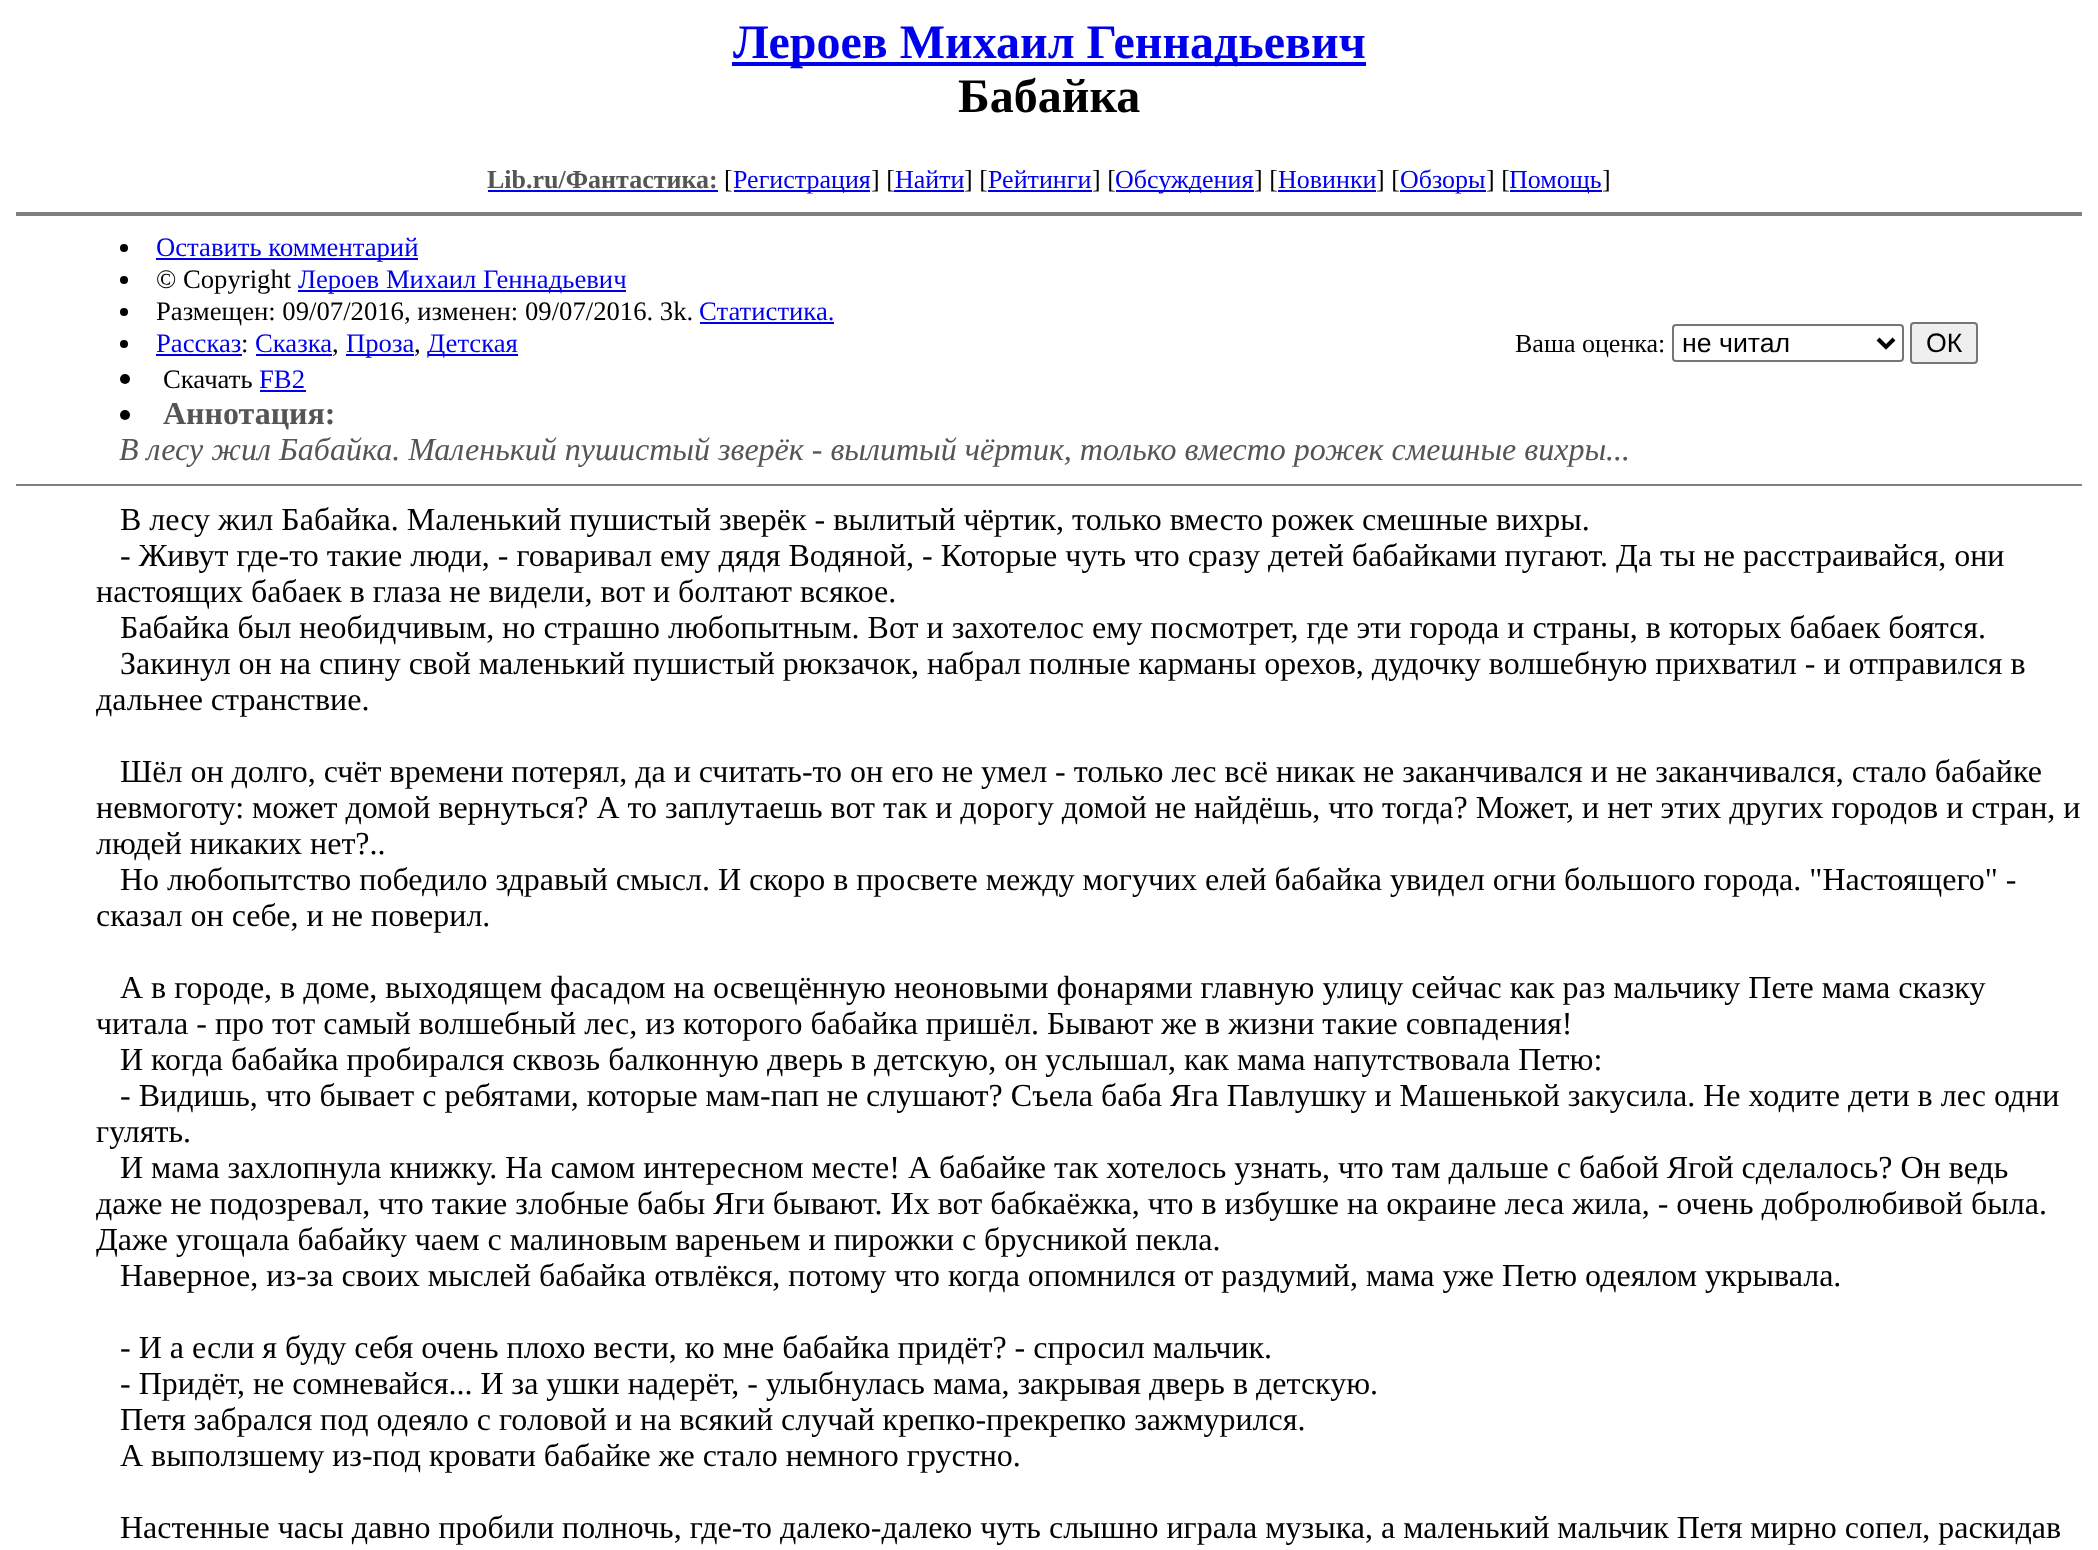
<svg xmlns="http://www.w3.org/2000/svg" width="2098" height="1550">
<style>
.a{font:bold 48px Liberation Serif;fill:#00e}
.b{font:bold 48px Liberation Serif;fill:#000}
.c{font:bold 26px Liberation Serif;fill:#555}
.d{font:26px Liberation Serif;fill:#000}
.e{font:26px Liberation Serif;fill:#00e}
.f{font:26.7px Liberation Serif;fill:#00e}
.g{font:26.7px Liberation Serif;fill:#000}
.h{font:26.7px Liberation Sans;fill:#000}
.i{font:bold 32px Liberation Serif;fill:#555}
.j{font:italic 32px Liberation Serif;fill:#555}
.k{font:32px Liberation Serif;fill:#000}
</style>
<rect width="100%" height="100%" fill="#fff"/>
<path fill="#00e" d="M732 62h634v4H732z"/>
<path fill="#00e" d="M488 190h230v2H488z"/>
<path fill="#00e" d="M734 190h136v2H734z"/>
<path fill="#00e" d="M894 190h70v2H894z"/>
<path fill="#00e" d="M988 190h104v2H988z"/>
<path fill="#00e" d="M1116 190h138v2H1116z"/>
<path fill="#00e" d="M1278 190h98v2H1278z"/>
<path fill="#00e" d="M1400 190h86v2H1400z"/>
<path fill="#00e" d="M1510 190h92v2H1510z"/>
<path fill="#808080" d="M16 212h2066v4H16z"/>
<circle fill="#000" cx="124" cy="248" r="4"/>
<path fill="#00e" d="M156 258h262v2H156z"/>
<circle fill="#000" cx="124" cy="280" r="4"/>
<path fill="#00e" d="M298 290h328v2H298z"/>
<circle fill="#000" cx="124" cy="312" r="4"/>
<path fill="#00e" d="M700 322h134v2H700z"/>
<circle fill="#000" cx="124" cy="344" r="4"/>
<path fill="#00e" d="M156 354h86v2H156z"/>
<path fill="#00e" d="M256 354h76v2H256z"/>
<path fill="#00e" d="M346 354h68v2H346z"/>
<path fill="#00e" d="M428 354h90v2H428z"/>
<circle fill="#000" cx="125" cy="379" r="5"/>
<path fill="#00e" d="M260 390h46v2H260z"/>
<rect fill="none" stroke="#767676" stroke-width="2" x="1673" y="325" width="230" height="36" rx="3"/>
<path fill="none" stroke="#000" stroke-width="4" d="M1878 339l8 8l8-8"/>
<rect fill="#efefef" stroke="#767676" stroke-width="2" x="1911" y="323" width="66" height="40" rx="3"/>
<circle fill="#000" cx="125" cy="415" r="5"/>
<path fill="#808080" d="M16 484h2066v2H16z"/>
<text class="a" x="733" y="58">Лероев Михаил Геннадьевич</text>
<text class="b" x="958" y="112">Бабайка</text>
<text class="c" x="487" y="188">Lib.ru/Фантастика:</text>
<text class="d" x="724" y="188">[</text>
<text class="e" x="733" y="188">Регистрация</text>
<text class="d" x="871" y="188">] [</text>
<text class="e" x="895" y="188">Найти</text>
<text class="d" x="964" y="188">] [</text>
<text class="e" x="988" y="188">Рейтинги</text>
<text class="d" x="1092" y="188">] [</text>
<text class="e" x="1115" y="188">Обсуждения</text>
<text class="d" x="1254" y="188">] [</text>
<text class="e" x="1278" y="188">Новинки</text>
<text class="d" x="1376" y="188">] [</text>
<text class="e" x="1400" y="188">Обзоры</text>
<text class="d" x="1486" y="188">] [</text>
<text class="e" x="1509" y="188">Помощь</text>
<text class="d" x="1602" y="188">]</text>
<text class="f" x="156" y="256">Оставить комментарий</text>
<text class="g" x="156" y="288">© Copyright</text>
<text class="f" x="298" y="288">Лероев Михаил Геннадьевич</text>
<text class="g" x="156" y="320">Размещен: 09/07/2016, изменен: 09/07/2016. 3k.</text>
<text class="f" x="699" y="320">Статистика.</text>
<text class="f" x="156" y="352">Рассказ</text>
<text class="g" x="241" y="352">:</text>
<text class="f" x="255" y="352">Сказка</text>
<text class="f" x="346" y="352">Проза</text>
<text class="f" x="427" y="352">Детская</text>
<text class="g" x="332" y="352">,</text>
<text class="g" x="414" y="352">,</text>
<text class="g" x="163" y="388">Скачать</text>
<text class="f" x="259" y="388">FB2</text>
<text class="d" x="1515" y="352">Ваша оценка:</text>
<text class="h" x="1682" y="352">не читал</text>
<text class="h" x="1926" y="352">ОК</text>
<text class="i" x="163" y="424">Аннотация:</text>
<text class="j" x="119" y="460">В лесу жил Бабайка. Маленький пушистый зверёк - вылитый чёртик, только вместо рожек смешные вихры...</text>
<text class="k" x="120" y="530">В лесу жил Бабайка. Маленький пушистый зверёк - вылитый чёртик, только вместо рожек смешные вихры.</text>
<text class="k" x="120" y="566">- Живут где-то такие люди, - говаривал ему дядя Водяной, - Которые чуть что сразу детей бабайками пугают. Да ты не расстраивайся, они</text>
<text class="k" x="96" y="602">настоящих бабаек в глаза не видели, вот и болтают всякое.</text>
<text class="k" x="120" y="638">Бабайка был необидчивым, но страшно любопытным. Вот и захотелос ему посмотрет, где эти города и страны, в которых бабаек боятся.</text>
<text class="k" x="120" y="674">Закинул он на спину свой маленький пушистый рюкзачок, набрал полные карманы орехов, дудочку волшебную прихватил - и отправился в</text>
<text class="k" x="96" y="710">дальнее странствие.</text>
<text class="k" x="120" y="782">Шёл он долго, счёт времени потерял, да и считать-то он его не умел - только лес всё никак не заканчивался и не заканчивался, стало бабайке</text>
<text class="k" x="96" y="818">невмоготу: может домой вернуться? А то заплутаешь вот так и дорогу домой не найдёшь, что тогда? Может, и нет этих других городов и стран, и</text>
<text class="k" x="96" y="854">людей никаких нет?..</text>
<text class="k" x="120" y="890">Но любопытство победило здравый смысл. И скоро в просвете между могучих елей бабайка увидел огни большого города. "Настоящего" -</text>
<text class="k" x="96" y="926">сказал он себе, и не поверил.</text>
<text class="k" x="120" y="998">А в городе, в доме, выходящем фасадом на освещённую неоновыми фонарями главную улицу сейчас как раз мальчику Пете мама сказку</text>
<text class="k" x="96" y="1034">читала - про тот самый волшебный лес, из которого бабайка пришёл. Бывают же в жизни такие совпадения!</text>
<text class="k" x="120" y="1070">И когда бабайка пробирался сквозь балконную дверь в детскую, он услышал, как мама напутствовала Петю:</text>
<text class="k" x="120" y="1106">- Видишь, что бывает с ребятами, которые мам-пап не слушают? Съела баба Яга Павлушку и Машенькой закусила. Не ходите дети в лес одни</text>
<text class="k" x="96" y="1142">гулять.</text>
<text class="k" x="120" y="1178">И мама захлопнула книжку. На самом интересном месте! А бабайке так хотелось узнать, что там дальше с бабой Ягой сделалось? Он ведь</text>
<text class="k" x="96" y="1214">даже не подозревал, что такие злобные бабы Яги бывают. Их вот бабкаёжка, что в избушке на окраине леса жила, - очень добролюбивой была.</text>
<text class="k" x="96" y="1250">Даже угощала бабайку чаем с малиновым вареньем и пирожки с брусникой пекла.</text>
<text class="k" x="120" y="1286">Наверное, из-за своих мыслей бабайка отвлёкся, потому что когда опомнился от раздумий, мама уже Петю одеялом укрывала.</text>
<text class="k" x="120" y="1358">- И а если я буду себя очень плохо вести, ко мне бабайка придёт? - спросил мальчик.</text>
<text class="k" x="120" y="1394">- Придёт, не сомневайся... И за ушки надерёт, - улыбнулась мама, закрывая дверь в детскую.</text>
<text class="k" x="120" y="1430">Петя забрался под одеяло с головой и на всякий случай крепко-прекрепко зажмурился.</text>
<text class="k" x="120" y="1466">А выползшему из-под кровати бабайке же стало немного грустно.</text>
<text class="k" x="120" y="1538">Настенные часы давно пробили полночь, где-то далеко-далеко чуть слышно играла музыка, а маленький мальчик Петя мирно сопел, раскидав</text>
</svg>
